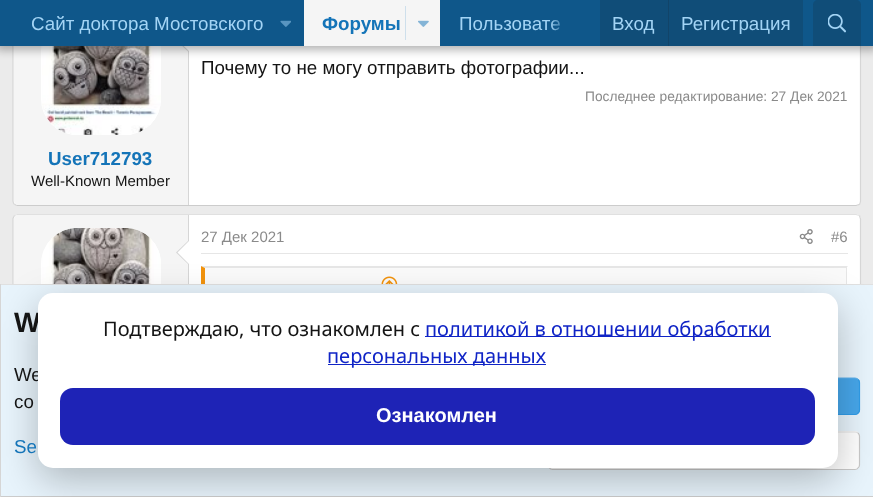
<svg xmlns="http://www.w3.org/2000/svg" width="873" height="497">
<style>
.a{font:18.75px Liberation Sans;fill:#a3d4f5}
.b{font:bold 18.75px Liberation Sans;fill:#1474b8}
.c{font:18.75px Liberation Sans;fill:#141414}
.d{font:13.75px Liberation Sans;fill:#8a8a8a}
.e{font:15px Liberation Sans;fill:#141414}
.f{font:15px Liberation Sans;fill:#8a8a8a}
.g{font:bold 28px Liberation Sans;fill:#141414}
.h{font:18.75px Liberation Sans;fill:#1474b8}
.i{font:20px Noto Sans;fill:#141414}
.j{font:20px Noto Sans;fill:#1024c6}
.k{font:bold 20px Liberation Sans;fill:#fff}
</style>
<defs>
<linearGradient id="g1" gradientUnits="userSpaceOnUse" x1="550" y1="23" x2="600" y2="23"><stop offset="0" stop-color="#0f578a" stop-opacity="0"/><stop offset="0.33" stop-color="#0f578a"/></linearGradient>
</defs>
<rect width="100%" height="100%" fill="#ebebeb"/>
<rect fill="#fff" x="13" y="1" width="848" height="205" rx="5"/>
<path fill="none" stroke="#d6d6d6" stroke-width="1.2" d="M859.5 3c.5 1 1 2 1 3v195c0 1.5-.5 2.5-1 3.5"/>
<path fill="none" stroke="#ccc" stroke-width="1.2" d="M859.5 204.5l-3.5 1h-838.5l-3-1"/>
<path fill="none" stroke="#d6d6d6" stroke-width="1.2" d="M14.5 204.5c-1-1-1.5-2-1.5-3.5v-194.5c0-1.5 .5-2.5 1.5-3.5"/>
<path fill="#f5f5f5" d="M18 3h171v202h-171c-2 0-4-2-4-4v-194c0-2 2-4 4-4z"/>
<path fill="#d6d6d6" d="M188 51h1v154H188z"/>
<rect fill="#fff" x="41" y="15" width="120" height="120" rx="36"/>
<image href="4.png" x="42" y="46" width="119" height="89"/>
<path fill="#d6d6d6" d="M189 27.5v25l-13-12.5z"/>
<path fill="#fff" d="M189 29v22l-11.5-11z"/>
<path fill="#0000004d" filter="blur(5px)" d="M-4 -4h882v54H-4z"/>
<path fill="#0f578a" d="M0 0h873v46H0z"/>
<image href="1.png" x="280" y="20" width="11" height="7"/>
<path fill="#f5f5f5" d="M304 0h136v46H304z"/>
<path fill="#cedfeb" d="M405 6h1v34H405z"/>
<image href="2.png" x="418" y="20" width="11" height="7"/>
<path fill="#104d78" d="M600 0h203v46H600z"/>
<path fill="#114469" d="M668 0h1v46H668z"/>
<path fill="#104d78" d="M818 0h38c3 0 5 2 5 5v41h-48v-41c0-3 2-5 5-5z"/>
<image href="3.png" x="828" y="14" width="18" height="19"/>
<rect fill="#fff" x="13" y="214" width="848" height="229" rx="5"/>
<path fill="none" stroke="#e0e0e0" stroke-width="1.2" d="M14.5 215.5l3-1h838.5l3.5 1"/>
<path fill="none" stroke="#d6d6d6" stroke-width="1.2" d="M859.5 215.5l1 3.5v219l-1 2.5"/>
<path fill="none" stroke="#d6d6d6" stroke-width="1.2" d="M14.5 440.5l-1.5-3v-219l1.5-3"/>
<path fill="#f5f5f5" d="M18 215h171v226h-171c-2 0-4-2-4-4v-218c0-2 2-4 4-4z"/>
<path fill="#d6d6d6" d="M188 215h1v69H188z"/>
<rect fill="#fff" x="41" y="228" width="120" height="120" rx="36"/>
<image href="5.png" x="42" y="228" width="119" height="56"/>
<path fill="#d6d6d6" d="M189 240v25l-13-12.5z"/>
<path fill="#fff" d="M189 241v23l-11.5-11.5z"/>
<path fill="#e6e6e6" d="M201 253h647v1H201z"/>
<image href="6.png" x="799" y="229" width="14" height="15"/>
<path fill="#e6e6e6" d="M201 266h647l-2 2h-641z"/>
<path fill="#e6e6e6" d="M846 266h1v18H846z"/>
<path fill="#f2930d" d="M201 366v-100l4 2v97z"/>
<path fill="#fafafa" d="M205 268h641v16H205z"/>
<image href="7.png" x="381" y="276" width="17" height="8"/>
<path fill="#e8f4fc" d="M1 285h872v211H1z"/>
<path fill="#e0e0e0" d="M0 284h873v1H0z"/>
<path fill="#ccc" d="M0 496h873v1H0z"/>
<path fill="#d6d6d6" d="M0 284h1v213H0z"/>
<rect fill="#47a7eb" x="548" y="378" width="312" height="37" rx="5"/>
<path fill="none" stroke="#309ce8" stroke-width="1.2" d="M858 379.5c1 .5 1.5 2 1.5 3v27.5c0 1-.5 2.5-1.5 3c-.5 1-2 1.5-3 1.5h-302.5c-1 0-2.5-.5-3-1.5"/>
<path fill="none" stroke="#5eb2ed" stroke-width="1.2" d="M549.5 413c-1-.5-1.5-2-1.5-3v-27.5c0-1 .5-2.5 1.5-3c.5-1 2-1.5 3-1.5h302.5c1 0 2.5 .5 3 1.5"/>
<rect fill="#fff" x="548" y="431" width="312" height="39" rx="5"/>
<path fill="none" stroke="#c9c9c9" stroke-width="1.2" d="M858 433c1 1 1.5 2 1.5 3v29c0 1-.5 2.5-1.5 3c-.5 1-2 1.5-3 1.5h-302.5c-1 0-2.5-.5-3-1.5"/>
<path fill="none" stroke="#e3e3e3" stroke-width="1.2" d="M549.5 468c-1-.5-1.5-2-1.5-3v-29c0-1 .5-2 1.5-3c.5-.5 2-1 3-1h302.5c1 0 2.5 .5 3 1"/>
<rect fill="#00000040" filter="blur(19px)" x="38" y="305" width="800" height="175" rx="15"/>
<text class="a" x="31" y="30">Сайт доктора Мостовского</text>
<text class="b" x="322" y="30">Форумы</text>
<text class="a" x="459" y="30">Пользовате</text>
<path fill="url(#g1)" d="M551 19h9v12H551z"/>
<text class="a" x="612" y="30">Вход</text>
<text class="a" x="681" y="30">Регистрация</text>
<text class="c" x="201" y="74">Почему то не могу отправить фотографии...</text>
<text class="d" x="585" y="101">Последнее редактирование: 27 Дек 2021</text>
<text class="b" x="48" y="165">User712793</text>
<text class="e" x="31" y="186">Well-Known Member</text>
<text class="f" x="201" y="242">27 Дек 2021</text>
<text class="f" x="831" y="242">#6</text>
<text class="g" x="14" y="332">W</text>
<text class="c" x="14" y="381">We</text>
<text class="c" x="14" y="408">co</text>
<text class="h" x="14" y="453">Se</text>
<rect fill="#fff" x="38" y="293" width="800" height="175" rx="15"/>
<text class="i" x="103" y="336">Подтверждаю, что ознакомлен с</text>
<path fill="#1024c6" d="M425 336h346v1H425z"/>
<text class="j" x="425" y="336">политикой в отношении обработки</text>
<path fill="#1024c6" d="M328 364h218v1H328z"/>
<text class="j" x="327" y="363">персональных данных</text>
<rect fill="#1e23b6" x="60" y="388" width="755" height="57" rx="13"/>
<text class="k" x="376" y="422">Ознакомлен</text>
</svg>
